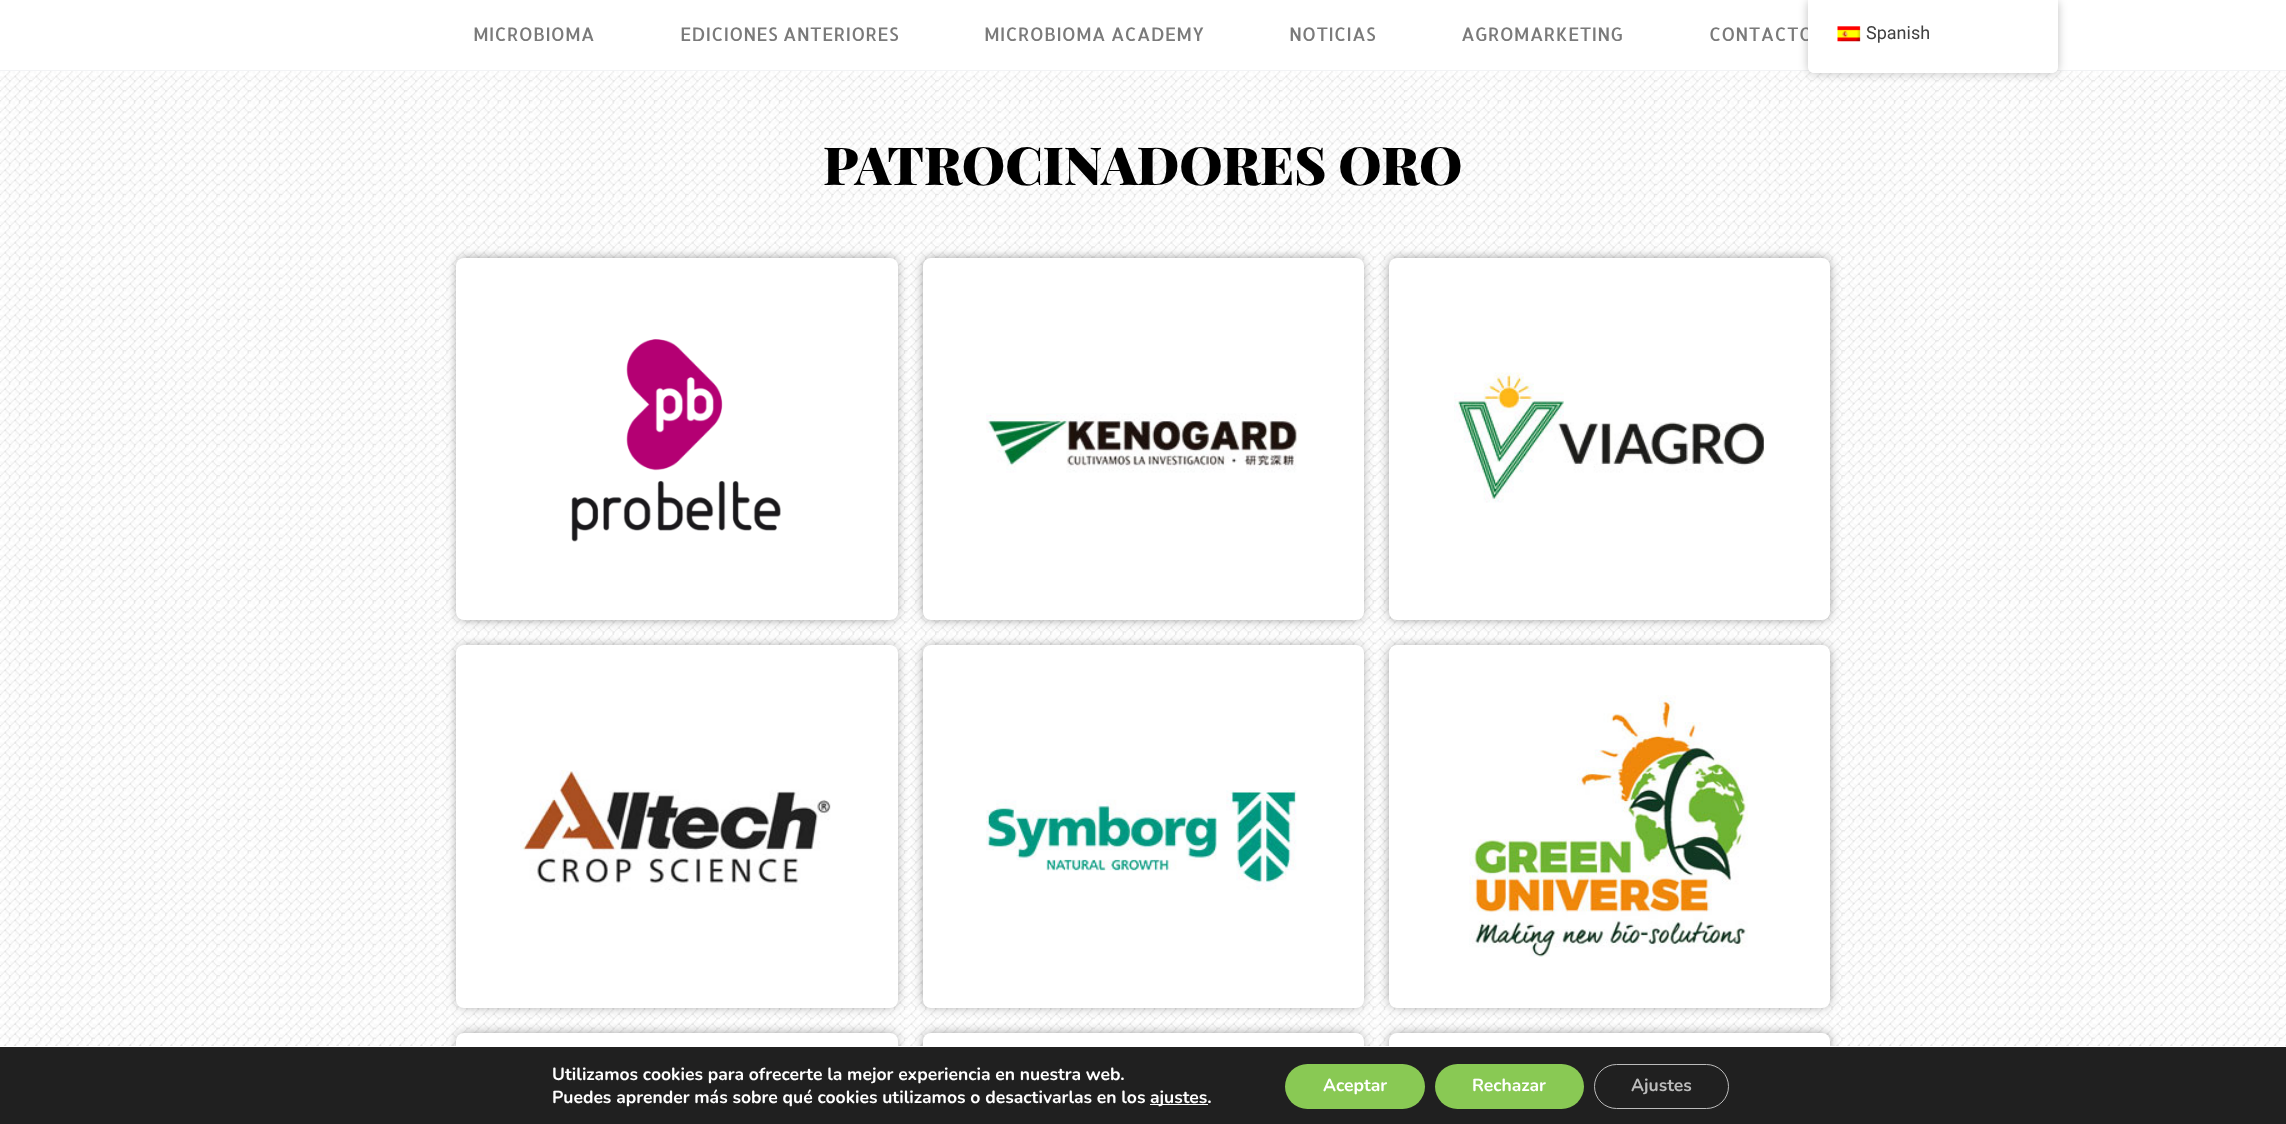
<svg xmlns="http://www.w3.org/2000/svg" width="2286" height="1124">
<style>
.a{font:18.75px Allerta;fill:#7a7a7a}
.b{font:18px Roboto;fill:#404040}
.c{font:900 52.5px Playfair Display;fill:#000}
.d{font:bold 17.5px Nunito;fill:#fff}
.e{font:bold 17.5px Nunito;fill:#bcbcbc}
</style>
<rect width="100%" height="100%" fill="#fff"/>
<path fill="#f2f3f5" d="M0 70h2286v1H0z"/>
<image href="2.png" x="0" y="71" width="2286" height="975"/>
<rect fill="#00000040" filter="blur(5px)" x="1808" width="250" height="73" rx="6"/>
<rect fill="#00000080" filter="blur(6px)" x="459" y="260" width="436" height="358" rx="5"/>
<rect fill="#fff" x="456" y="258" width="442" height="362" rx="8"/>
<image href="3.png" x="571" y="339" width="210" height="203"/>
<rect fill="#00000080" filter="blur(6px)" x="925" y="260" width="436" height="358" rx="5"/>
<rect fill="#fff" x="923" y="258" width="441" height="362" rx="8"/>
<image href="4.png" x="986" y="413" width="311" height="60"/>
<rect fill="#00000080" filter="blur(6px)" x="1391" y="260" width="437" height="358" rx="5"/>
<rect fill="#fff" x="1389" y="258" width="441" height="362" rx="8"/>
<image href="5.png" x="1454" y="372" width="310" height="131"/>
<rect fill="#00000080" filter="blur(6px)" x="459" y="648" width="436" height="357" rx="5"/>
<rect fill="#fff" x="456" y="645" width="442" height="363" rx="8"/>
<image href="6.png" x="520" y="770" width="311" height="120"/>
<rect fill="#00000080" filter="blur(6px)" x="925" y="648" width="436" height="357" rx="5"/>
<rect fill="#fff" x="923" y="645" width="441" height="363" rx="8"/>
<image href="7.png" x="986" y="790" width="311" height="100"/>
<rect fill="#00000080" filter="blur(6px)" x="1391" y="648" width="437" height="357" rx="5"/>
<rect fill="#fff" x="1389" y="645" width="441" height="363" rx="8"/>
<image href="8.png" x="1469" y="695" width="279" height="262"/>
<rect fill="#00000080" filter="blur(6px)" x="459" y="1035" width="436" height="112" rx="5"/>
<rect fill="#fff" x="456" y="1033" width="442" height="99" rx="8"/>
<rect fill="#00000080" filter="blur(6px)" x="925" y="1035" width="436" height="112" rx="5"/>
<rect fill="#fff" x="923" y="1033" width="441" height="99" rx="8"/>
<rect fill="#00000080" filter="blur(6px)" x="1391" y="1035" width="437" height="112" rx="5"/>
<rect fill="#fff" x="1389" y="1033" width="441" height="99" rx="8"/>
<path fill="#202020" d="M0 1047h2286v77H0z"/>
<path fill="#fff" d="M447 1046h1393v1H447z"/>
<path fill="#fff" d="M1150 1104h58v1H1150z"/>
<rect fill="#89c954" x="1285" y="1064" width="140" height="45" rx="22.5"/>
<rect fill="#89c954" x="1435" y="1064" width="149" height="45" rx="22.5"/>
<rect fill="none" stroke="#bcbcbc" x="1594.5" y="1064.5" width="134" height="44" rx="22"/>
<text class="a" x="473" y="41">MICROBIOMA</text>
<text class="a" x="680" y="41">EDICIONES ANTERIORES</text>
<text class="a" x="984" y="41">MICROBIOMA ACADEMY</text>
<text class="a" x="1289" y="41">NOTICIAS</text>
<text class="a" x="1461" y="41">AGROMARKETING</text>
<text class="a" x="1709" y="41">CONTACTO</text>
<path fill="#fff" d="M1808 0h250v67c0 3.5-2.5 6-6 6h-238c-3.5 0-6-2.5-6-6z"/>
<image href="1.png" x="1837" y="26" width="24" height="16"/>
<text class="b" x="1866" y="39">Spanish</text>
<text class="c" x="823" y="185">PATROCINADORES ORO</text>
<text class="d" x="552" y="1080">Utilizamos cookies para ofrecerte la mejor experiencia en nuestra web.</text>
<text class="d" x="552" y="1103">Puedes aprender más sobre qué cookies utilizamos o desactivarlas en los</text>
<text class="d" x="1150" y="1103">ajustes.</text>
<text class="d" x="1323" y="1091">Aceptar</text>
<text class="d" x="1472" y="1091">Rechazar</text>
<text class="e" x="1631" y="1091">Ajustes</text>
</svg>
